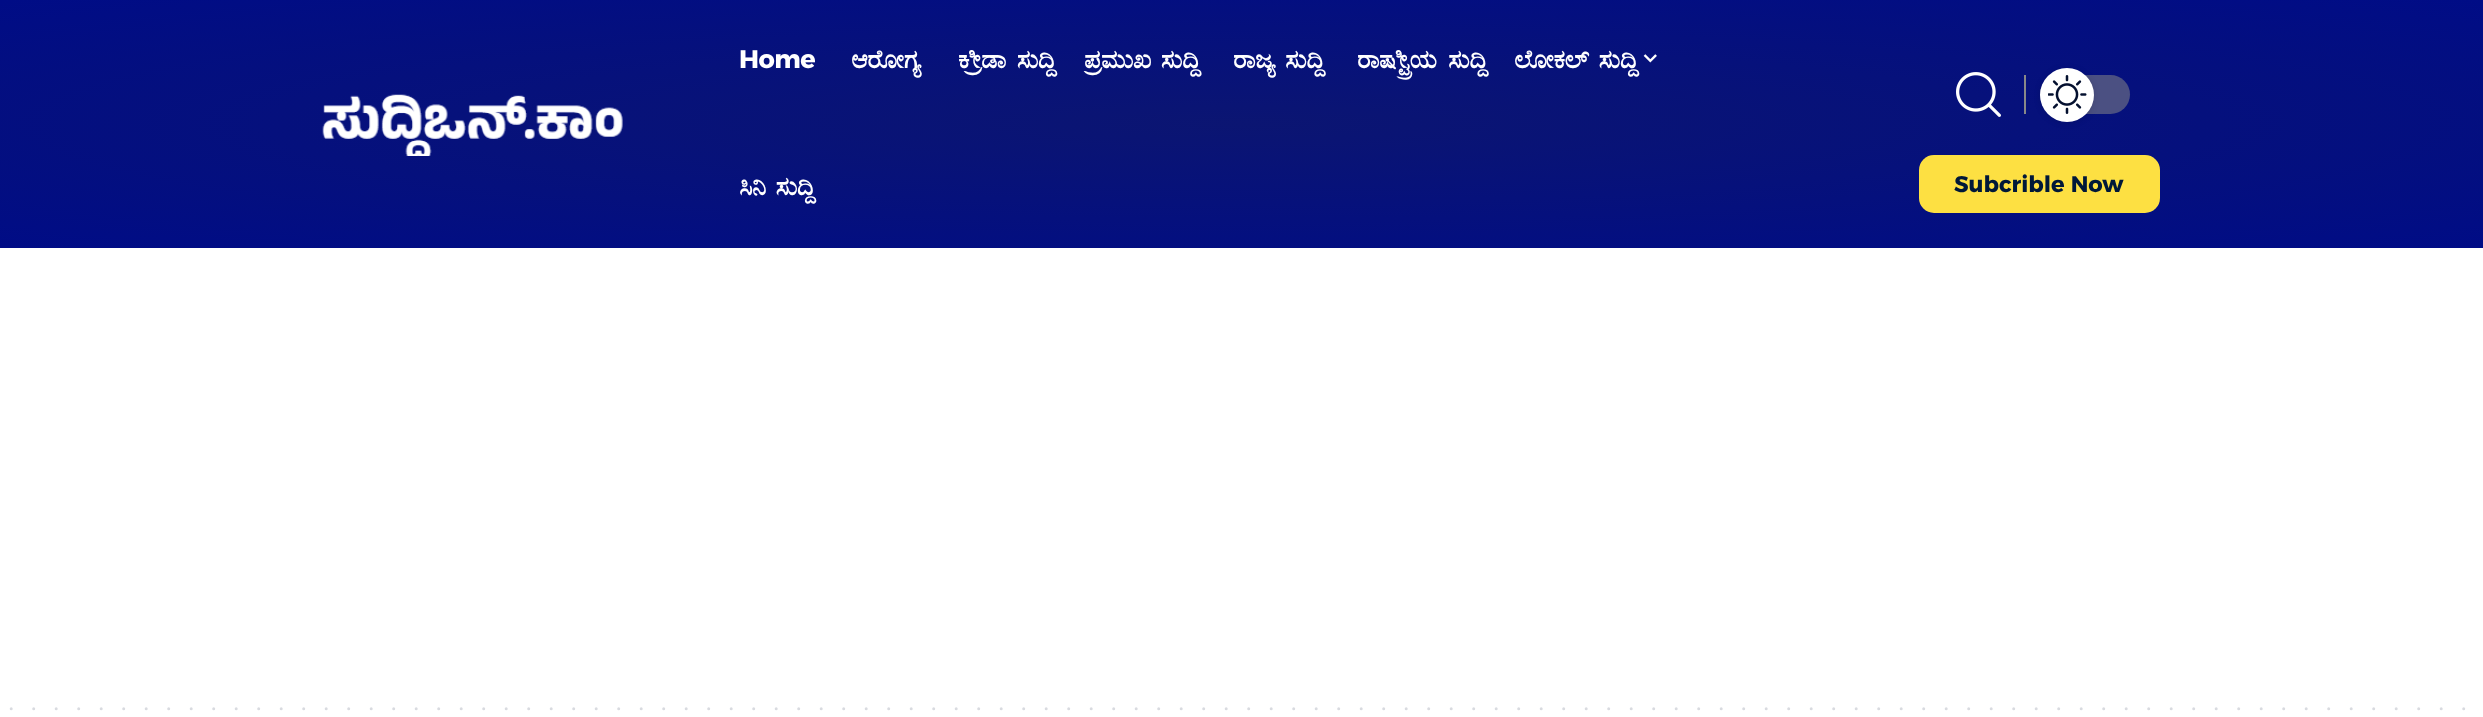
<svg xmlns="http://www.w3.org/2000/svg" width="2483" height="717">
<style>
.a{font:bold 25.5px Alexandria;letter-spacing:-0.5px;fill:#fff}
.b{font:bold 25.5px FreeSerif;letter-spacing:-0.5px;fill:#fff}
.c{font:bold 22.5px Alexandria;fill:#001839}
</style>
<defs>
<radialGradient id="g1" gradientUnits="userSpaceOnUse" cx="0" cy="0" r="1" gradientTransform="matrix(1756 0 0 175 1242 124)"><stop offset="0" stop-color="#0b1572"/><stop offset="1" stop-color="#000c86"/></radialGradient>
</defs>
<rect width="100%" height="100%" fill="#fff"/>
<path fill="url(#g1)" d="M0 0h2483v248H0z"/>
<image href="1.png" x="322" y="94" width="301" height="62"/>
<image href="2.png" x="1643" y="54" width="14" height="9"/>
<image href="3.png" x="1956" y="72" width="45" height="45"/>
<path fill="#888" d="M2024 75h2v39H2024z"/>
<rect fill="#4b5082" x="2040" y="75" width="90" height="39" rx="19.5"/>
<rect fill="#0000001f" filter="blur(3px)" x="2040" y="69" width="54" height="54" rx="27"/>
<circle fill="#fff" cx="2067" cy="95" r="27"/>
<image href="4.png" x="2048" y="75" width="39" height="39"/>
<rect fill="#fde042" x="1919" y="155" width="241" height="58" rx="15"/>
<path fill="none" stroke="#d9dbe0" stroke-width="3" stroke-linecap="round" stroke-dasharray="0 22.5" d="M11.2 708.8h2452.9"/>
<text class="a" x="739" y="68">Home</text>
<text class="b" x="851" y="68">ಆರೋಗ್ಯ</text>
<text class="b" x="958" y="68" word-spacing="5">ಕ್ರೀಡಾ ಸುದ್ದಿ</text>
<text class="b" x="1084" y="68" word-spacing="4">ಪ್ರಮುಖ ಸುದ್ದಿ</text>
<text class="b" x="1233" y="68" word-spacing="4">ರಾಜ್ಯ ಸುದ್ದಿ</text>
<text class="b" x="1357" y="68" word-spacing="6">ರಾಷ್ಟ್ರೀಯ ಸುದ್ದಿ</text>
<text class="b" x="1514" y="68" word-spacing="4">ಲೋಕಲ್ ಸುದ್ದಿ</text>
<text class="b" x="739" y="195" word-spacing="4">ಸಿನಿ ಸುದ್ದಿ</text>
<text class="c" x="1954" y="192">Subcrible Now</text>
</svg>
